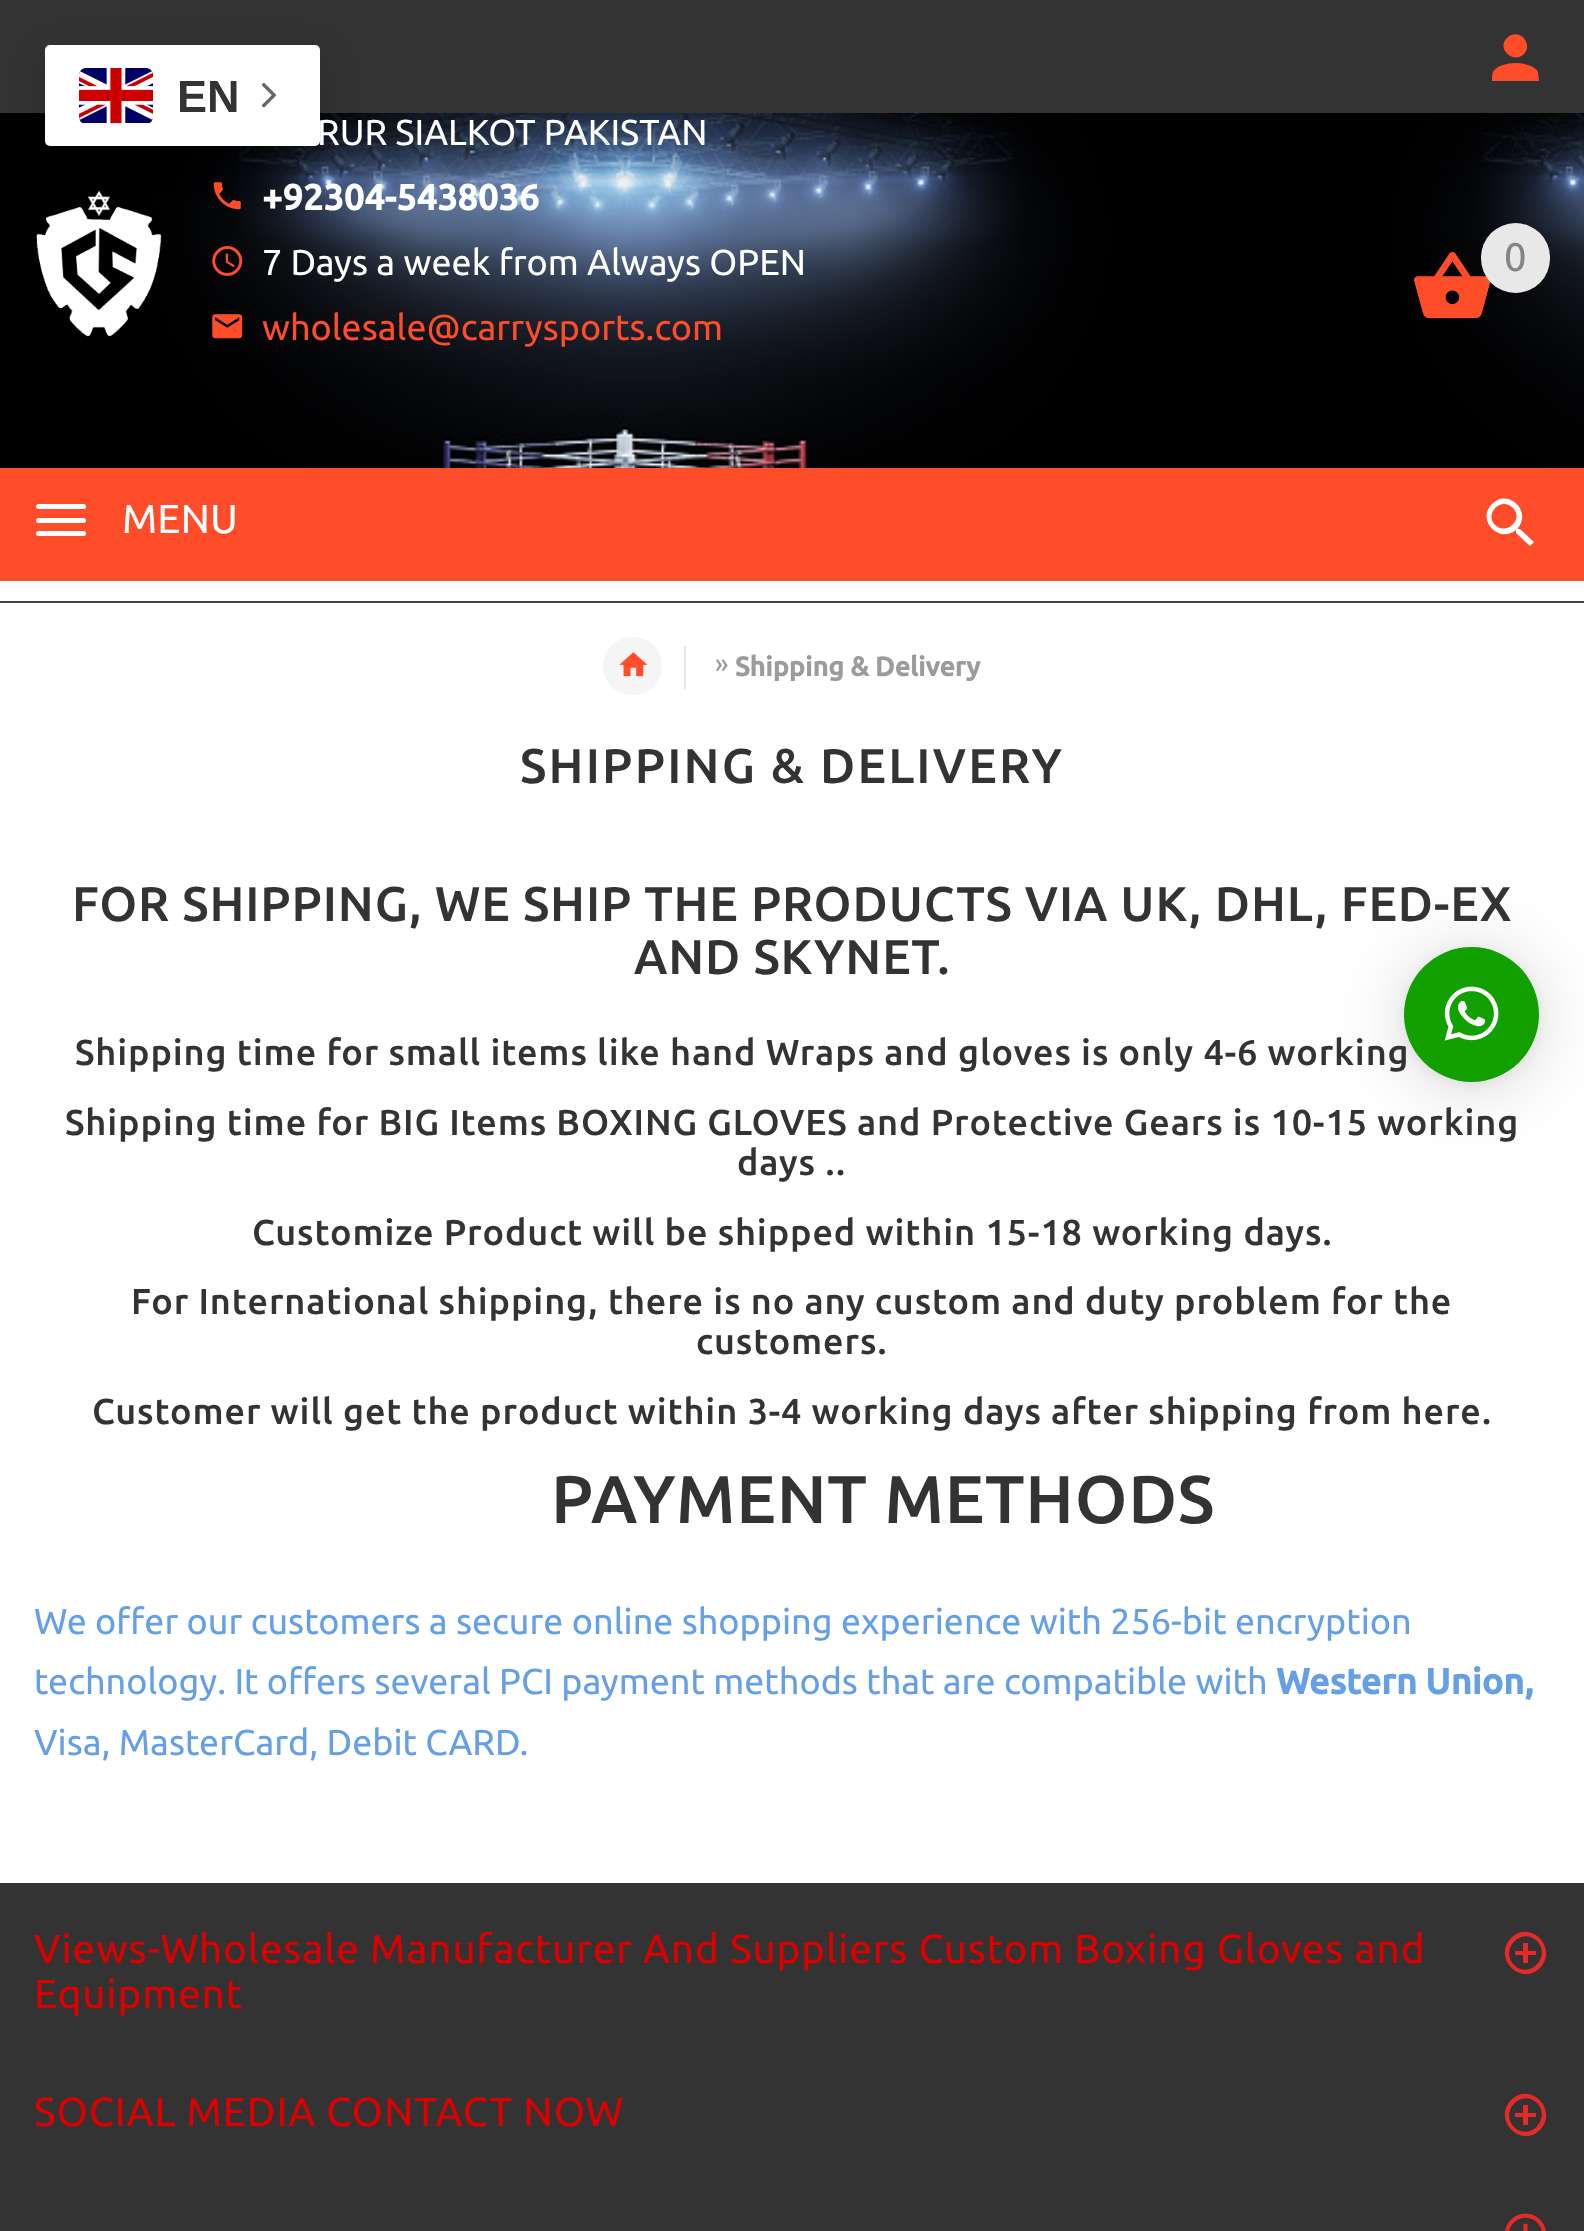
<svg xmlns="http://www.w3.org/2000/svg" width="1584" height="2231">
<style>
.a{font:bold 45px Liberation Sans;fill:#333}
.b{font:36px Ubuntu;fill:#fff}
.c{font:bold 36px Ubuntu;fill:#fff}
.d{font:36px Ubuntu;fill:#ff4c29}
.e{font:40px Ubuntu;fill:#848484}
.f{font:40.5px Ubuntu;fill:#fff}
.g{font:27px Ubuntu;fill:#9b9b9b}
.h{font:bold 27px Ubuntu;fill:#9b9b9b}
.i{font:500 48.6px Ubuntu;letter-spacing:2.25px;fill:#333}
.j{font:500 48.6px Ubuntu;letter-spacing:0.9px;fill:#333}
.k{font:500 36px Ubuntu;letter-spacing:0.9px;fill:#333}
.l{font:500 67.5px Ubuntu;letter-spacing:0.9px;fill:#333}
.m{font:36px Ubuntu;fill:#659fe6}
.n{font:bold 36px Ubuntu;fill:#659fe6}
.o{font:40.5px Ubuntu;letter-spacing:0.9px;fill:#d00}
</style>
<rect width="100%" height="100%" fill="#fff"/>
<image href="3.png" x="0" y="113" width="1584" height="355"/>
<image href="4.png" x="36" y="190" width="126" height="147"/>
<path fill="#333" d="M0 0h1584v113H0z"/>
<image href="5.png" x="213" y="182" width="28" height="28"/>
<rect fill="#00000026" filter="blur(17px)" x="45" y="56" width="275" height="102" rx="5"/>
<rect fill="#fff" x="45" y="45" width="275" height="101" rx="5"/>
<image href="1.png" x="79" y="68" width="74" height="56"/>
<image href="2.png" x="261" y="83" width="16" height="25"/>
<image href="6.png" x="212" y="246" width="31" height="30"/>
<image href="7.png" x="212" y="314" width="31" height="25"/>
<path fill="#ff4c29" d="M1500 66c10-4 21-4 31 0c3 2 6 3 7 6l1 9h-47c0-8 0-11 8-15zm24-12c-11 11-28-6-17-16c11-11 27 5 17 16z"/>
<image href="9.png" x="1414" y="252" width="77" height="67"/>
<image href="8.png" x="1414" y="252" width="77" height="67"/>
<rect fill="#e8e8e8" x="1481" y="223" width="69" height="70" rx="34.5"/>
<path fill="#ff4c29" d="M0 468h1584v113H0z"/>
<path fill="#fff" d="M1495 525c12 11 29-6 18-17c-12-12-29 6-18 17zm25 4l14 13l-4 4l-14-13v-2v-1c-17 14-40-10-24-26c16-16 40 7 26 24v1z"/>
<rect fill="#fff" x="36" y="504" width="50" height="5" rx="2.5"/>
<rect fill="#fff" x="36" y="518" width="50" height="5" rx="2.5"/>
<rect fill="#fff" x="36" y="531" width="50" height="5" rx="2.5"/>
<path fill="#444" d="M0 601h1584v2H0z"/>
<rect fill="#f5f5f5" x="603" y="637" width="59" height="58" rx="29"/>
<image href="10.png" x="619" y="652" width="29" height="25"/>
<path fill="#e5e5e5" d="M684 646h2v43H684z"/>
<rect fill="#00000029" filter="blur(36px)" x="1404" y="952" width="135" height="135" rx="67.5"/>
<rect fill="#0000000f" filter="blur(7px)" x="1404" y="950" width="135" height="135" rx="67.5"/>
<path fill="#333" d="M0 1883h1584v348H0z"/>
<path fill="#e62a2a" d="M1514 1965c15 15 38-8 23-24c-15-15-38 8-23 24zm-3-27c19-19 48 10 29 30c-19 19-48-10-29-30zm17 5v8h8v4h-8v8h-5v-8h-8v-4h8v-8z"/>
<path fill="#e62a2a" d="M1514 2127c15 15 38-8 23-24c-15-15-38 8-23 24zm-3-27c19-19 48 10 29 30c-19 19-48-10-29-30zm17 5v8h8v4h-8v8h-5v-8h-8v-4h8v-8z"/>
<image href="12.png" x="1505" y="2213" width="41" height="18"/>
<text class="a" x="177" y="112">EN</text>
<text class="b" x="317" y="145">RUR SIALKOT PAKISTAN</text>
<text class="c" x="262" y="210">+92304-5438036</text>
<text class="b" x="262" y="275">7 Days a week from Always OPEN</text>
<text class="d" x="262" y="340">wholesale@carrysports.com</text>
<text class="e" x="1504" y="271">0</text>
<text class="f" x="122" y="533">MENU</text>
<text class="g" x="715" y="673">»</text>
<text class="h" x="735" y="676">Shipping &amp; Delivery</text>
<text class="i" x="520" y="783">SHIPPING &amp; DELIVERY</text>
<text class="j" x="72" y="921">FOR SHIPPING, WE SHIP THE PRODUCTS VIA UK, DHL, FED-EX</text>
<text class="j" x="634" y="974">AND SKYNET.</text>
<text class="k" x="75" y="1065">Shipping time for small items like hand Wraps and gloves is only 4-6 working</text>
<text class="k" x="65" y="1135">Shipping time for BIG Items BOXING GLOVES and Protective Gears is 10-15 working</text>
<text class="k" x="737" y="1175">days ..</text>
<text class="k" x="252" y="1245">Customize Product will be shipped within 15-18 working days.</text>
<text class="k" x="131" y="1314">For International shipping, there is no any custom and duty problem for the</text>
<text class="k" x="696" y="1354">customers.</text>
<text class="k" x="92" y="1424">Customer will get the product within 3-4 working days after shipping from here.</text>
<text class="l" x="551" y="1523">PAYMENT METHODS</text>
<text class="m" x="34" y="1634">We offer our customers a secure online shopping experience with 256-bit encryption</text>
<text class="m" x="34" y="1694">technology. It offers several PCI payment methods that are compatible with</text>
<text class="n" x="1276" y="1694">Western Union,</text>
<text class="m" x="34" y="1755">Visa, MasterCard, Debit CARD.</text>
<circle fill="#12a000" cx="1471.5" cy="1014.5" r="67.5"/>
<image href="11.png" x="1444" y="986" width="55" height="55"/>
<text class="o" x="34" y="1963">Views-Wholesale Manufacturer And Suppliers Custom Boxing Gloves and</text>
<text class="o" x="34" y="2008">Equipment</text>
<text class="o" x="34" y="2126">SOCIAL MEDIA CONTACT NOW</text>
</svg>
